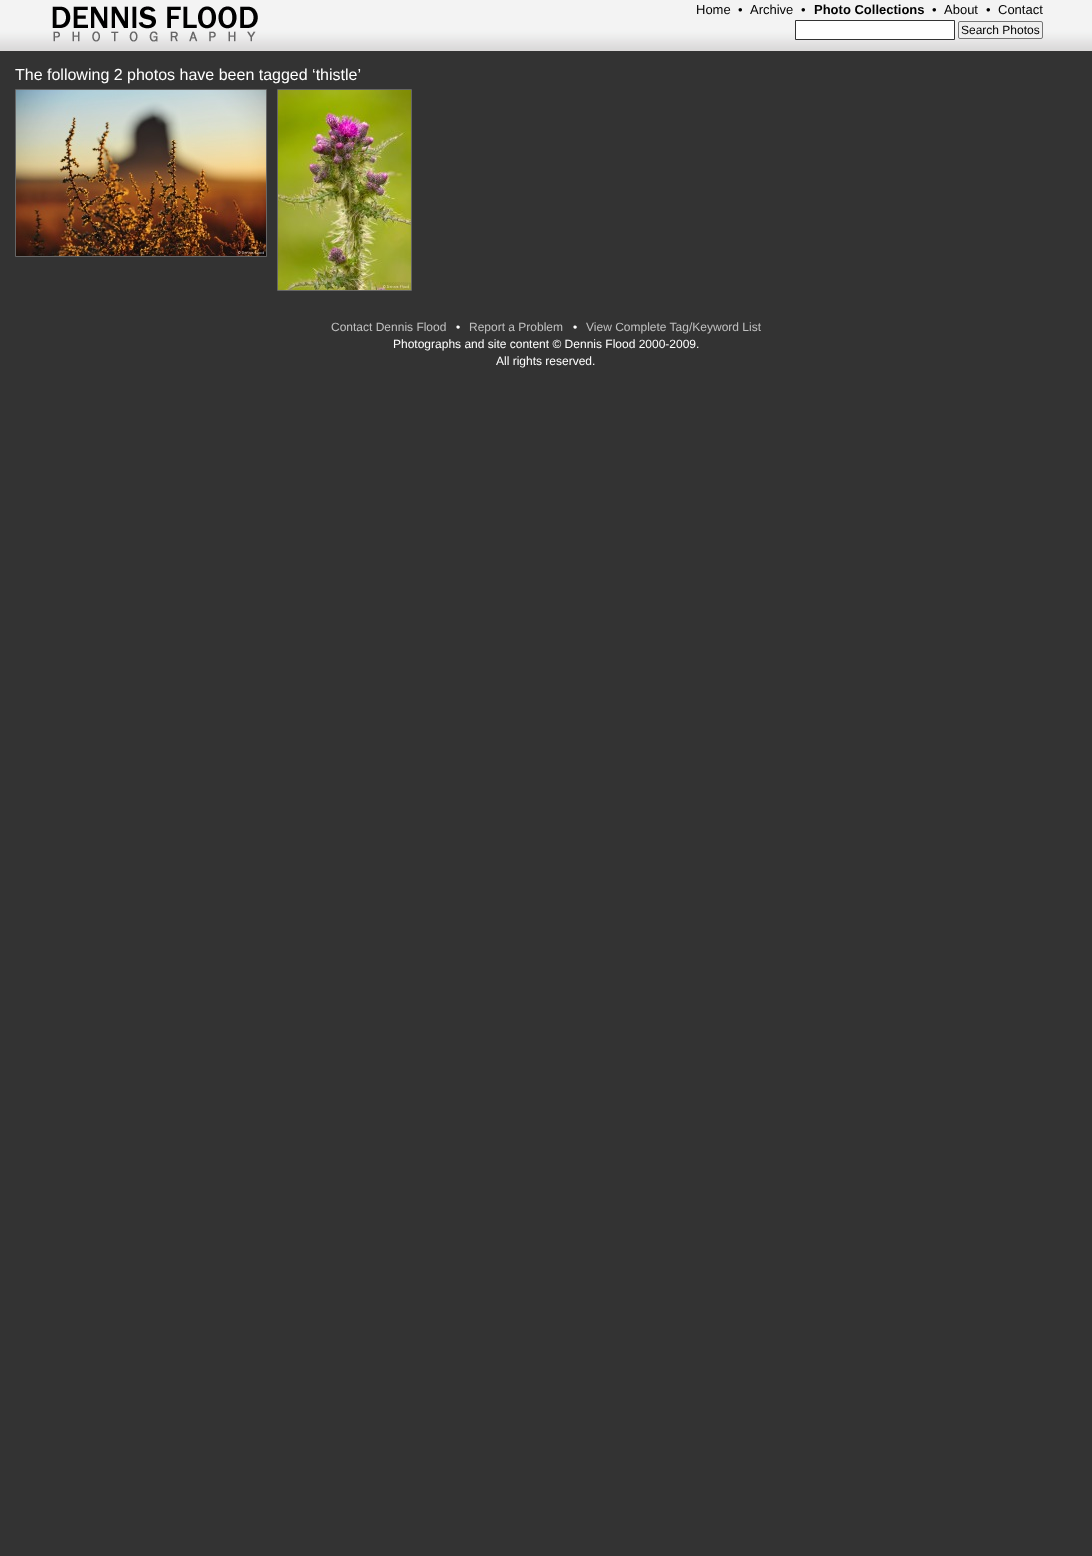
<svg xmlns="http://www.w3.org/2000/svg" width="1092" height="1556">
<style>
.a{font:13px Liberation Sans;fill:#000}
.b{font:bold 13px Liberation Sans;fill:#000}
.c{font:12px Liberation Sans;fill:#000}
.d{font:16px Liberation Sans;fill:#fff}
.e{font:12px Liberation Sans;fill:#c0c0c0}
.f{font:12px Liberation Sans;fill:#fff}
</style>
<rect width="100%" height="100%" fill="#333"/>
<image href="1.png" x="0" y="0" width="1092" height="51"/>
<image href="2.png" x="52" y="6" width="206" height="36"/>
<path fill="#fff" stroke="#333" d="M795.5 20.5h159v19H795.5z"/>
<rect fill="#efefef" stroke="#767676" x="958.5" y="21.5" width="84" height="17" rx="1.5"/>
<path fill="none" stroke="#666" d="M15.5 89.5h251v167H15.5z"/>
<image href="3.png" x="16" y="90" width="250" height="166"/>
<path fill="none" stroke="#666" d="M277.5 89.5h134v201H277.5z"/>
<image href="4.png" x="278" y="90" width="133" height="200"/>
<text class="a" x="696" y="14">Home</text>
<text class="a" x="738" y="14">•</text>
<text class="a" x="750" y="14">Archive</text>
<text class="a" x="801" y="14">•</text>
<text class="b" x="814" y="14">Photo Collections</text>
<text class="a" x="932" y="14">•</text>
<text class="a" x="944" y="14">About</text>
<text class="a" x="986" y="14">•</text>
<text class="a" x="998" y="14">Contact</text>
<text class="c" x="961" y="34">Search Photos</text>
<text class="d" x="15" y="80">The following 2 photos have been tagged ‘thistle’</text>
<text class="e" x="331" y="331">Contact Dennis Flood</text>
<text class="f" x="456" y="331">•</text>
<text class="e" x="469" y="331">Report a Problem</text>
<text class="f" x="573" y="331">•</text>
<text class="e" x="586" y="331">View Complete Tag/Keyword List</text>
<text class="f" x="393" y="348">Photographs and site content © Dennis Flood 2000-2009.</text>
<text class="f" x="496" y="365">All rights reserved.</text>
</svg>
